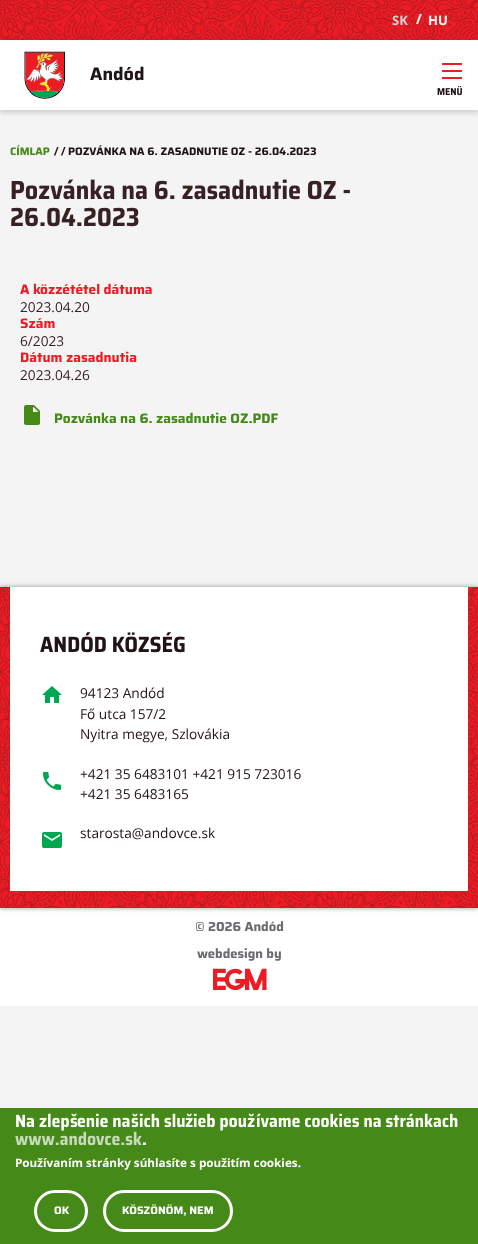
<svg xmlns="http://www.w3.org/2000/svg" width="478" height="1244">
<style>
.a{font:bold 13px Open Sans;fill:#d7d3d3}
.b{font:bold 14px Open Sans;fill:#fff}
.c{font:bold 13px Open Sans;fill:#fff}
.d{font:bold 18px Saira;fill:#211414}
.e{font:bold 10.9px Saira;fill:#458918}
.f{font:bold 10.9px Saira;fill:#211414}
.g{font:bold 13.7px Saira;fill:#ed1b24}
.h{font:13.7px Open Sans;fill:#372122}
.i{font:bold 13.7px Saira;fill:#458918}
.j{font:13.7px Open Sans;fill:#211414}
.k{font:bold 13px Saira;fill:#6b6c70}
.l{font:28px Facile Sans;letter-spacing:-3px;fill:#ed1b24}
.m{font:bold 11.7px Open Sans;fill:#fff}
.n{font:bold 10.9px Saira;fill:#fff}
</style>
<rect width="100%" height="100%" fill="#f5f4f4"/>
<image href="1.png" x="0" y="0" width="478" height="40"/>
<path fill="#00000026" filter="blur(2.5px)" d="M0 43h478v70H0z"/>
<path fill="#fff" d="M0 40h478v70H0z"/>
<image href="2.png" x="24" y="51" width="41" height="48"/>
<path fill="#ed1b24" d="M442 77h20v2H442z"/>
<path fill="#ed1b24" d="M442 70h20v2H442z"/>
<path fill="#ed1b24" d="M442 63h20v2H442z"/>
<image href="3.png" x="437" y="86" width="25" height="10"/>
<image href="4.png" x="11" y="179" width="339" height="21"/>
<image href="5.png" x="11" y="207" width="128" height="20"/>
<image href="6.png" x="24" y="405" width="16" height="20"/>
<path fill="#fff" d="M0 908h478v98H0z"/>
<path fill="#929292" filter="blur(2.5px)" d="M0 587h478v321H0z"/>
<image href="7.png" x="0" y="587" width="478" height="321"/>
<path fill="#fff" d="M10 587h458v304H10z"/>
<image href="8.png" x="40" y="632" width="145" height="21"/>
<image href="9.png" x="42" y="686" width="20" height="17"/>
<image href="10.png" x="43" y="772" width="18" height="18"/>
<image href="11.png" x="42" y="832" width="20" height="16"/>
<path fill="#458918" d="M0 1108h478v136H0z"/>
<image href="12.png" x="16" y="1113" width="53" height="18"/>
<image href="13.png" x="70" y="1113" width="8" height="15"/>
<image href="14.png" x="77" y="1113" width="53" height="15"/>
<image href="13.png" x="131" y="1113" width="8" height="15"/>
<image href="15.png" x="139" y="1113" width="46" height="15"/>
<image href="16.png" x="185" y="1113" width="8" height="14"/>
<image href="17.png" x="193" y="1113" width="53" height="18"/>
<image href="16.png" x="247" y="1113" width="8" height="14"/>
<image href="18.png" x="256" y="1113" width="202" height="15"/>
<image href="19.png" x="15" y="1131" width="127" height="15"/>
<path fill="#fff" d="M143 1145v-2.5h3v2.5z"/>
<rect fill="none" stroke="#fff" stroke-width="3" x="35.5" y="1191.5" width="51" height="39" rx="19.5"/>
<rect fill="none" stroke="#fff" stroke-width="3" x="104.5" y="1191.5" width="127" height="39" rx="19.5"/>
<text class="a" x="392" y="25">SK</text>
<text class="b" x="416" y="24">/</text>
<text class="c" x="428" y="25">HU</text>
<text class="d" x="90" y="80">Andód</text>
<text class="e" x="10" y="155">CÍMLAP</text>
<text class="f" x="54" y="155">/</text>
<text class="f" x="61" y="155">/</text>
<text class="f" x="68" y="155">POZVÁNKA NA 6. ZASADNUTIE OZ - 26.04.2023</text>
<text class="g" x="20" y="294">A közzététel dátuma</text>
<text class="h" x="20" y="312">2023.04.20</text>
<text class="g" x="20" y="328">Szám</text>
<text class="h" x="20" y="346">6/2023</text>
<text class="g" x="20" y="362">Dátum zasadnutia</text>
<text class="h" x="20" y="380">2023.04.26</text>
<text class="i" x="54" y="423">Pozvánka na 6. zasadnutie OZ.PDF</text>
<text class="j" x="80" y="698">94123 Andód</text>
<text class="j" x="80" y="719">Fő utca 157/2</text>
<text class="j" x="80" y="739">Nyitra megye, Szlovákia</text>
<text class="j" x="80" y="779">+421 35 6483101 +421 915 723016</text>
<text class="j" x="80" y="799">+421 35 6483165</text>
<text class="j" x="80" y="838">starosta@andovce.sk</text>
<text class="k" x="195" y="931">© 2026 Andód</text>
<text class="k" x="197" y="958">webdesign by</text>
<text class="l" x="213" y="990">EGM</text>
<text class="m" x="15" y="1167">Používaním stránky súhlasíte s použitím cookies.</text>
<text class="n" x="54" y="1214">OK</text>
<text class="n" x="122" y="1214">KÖSZÖNÖM, NEM</text>
</svg>
